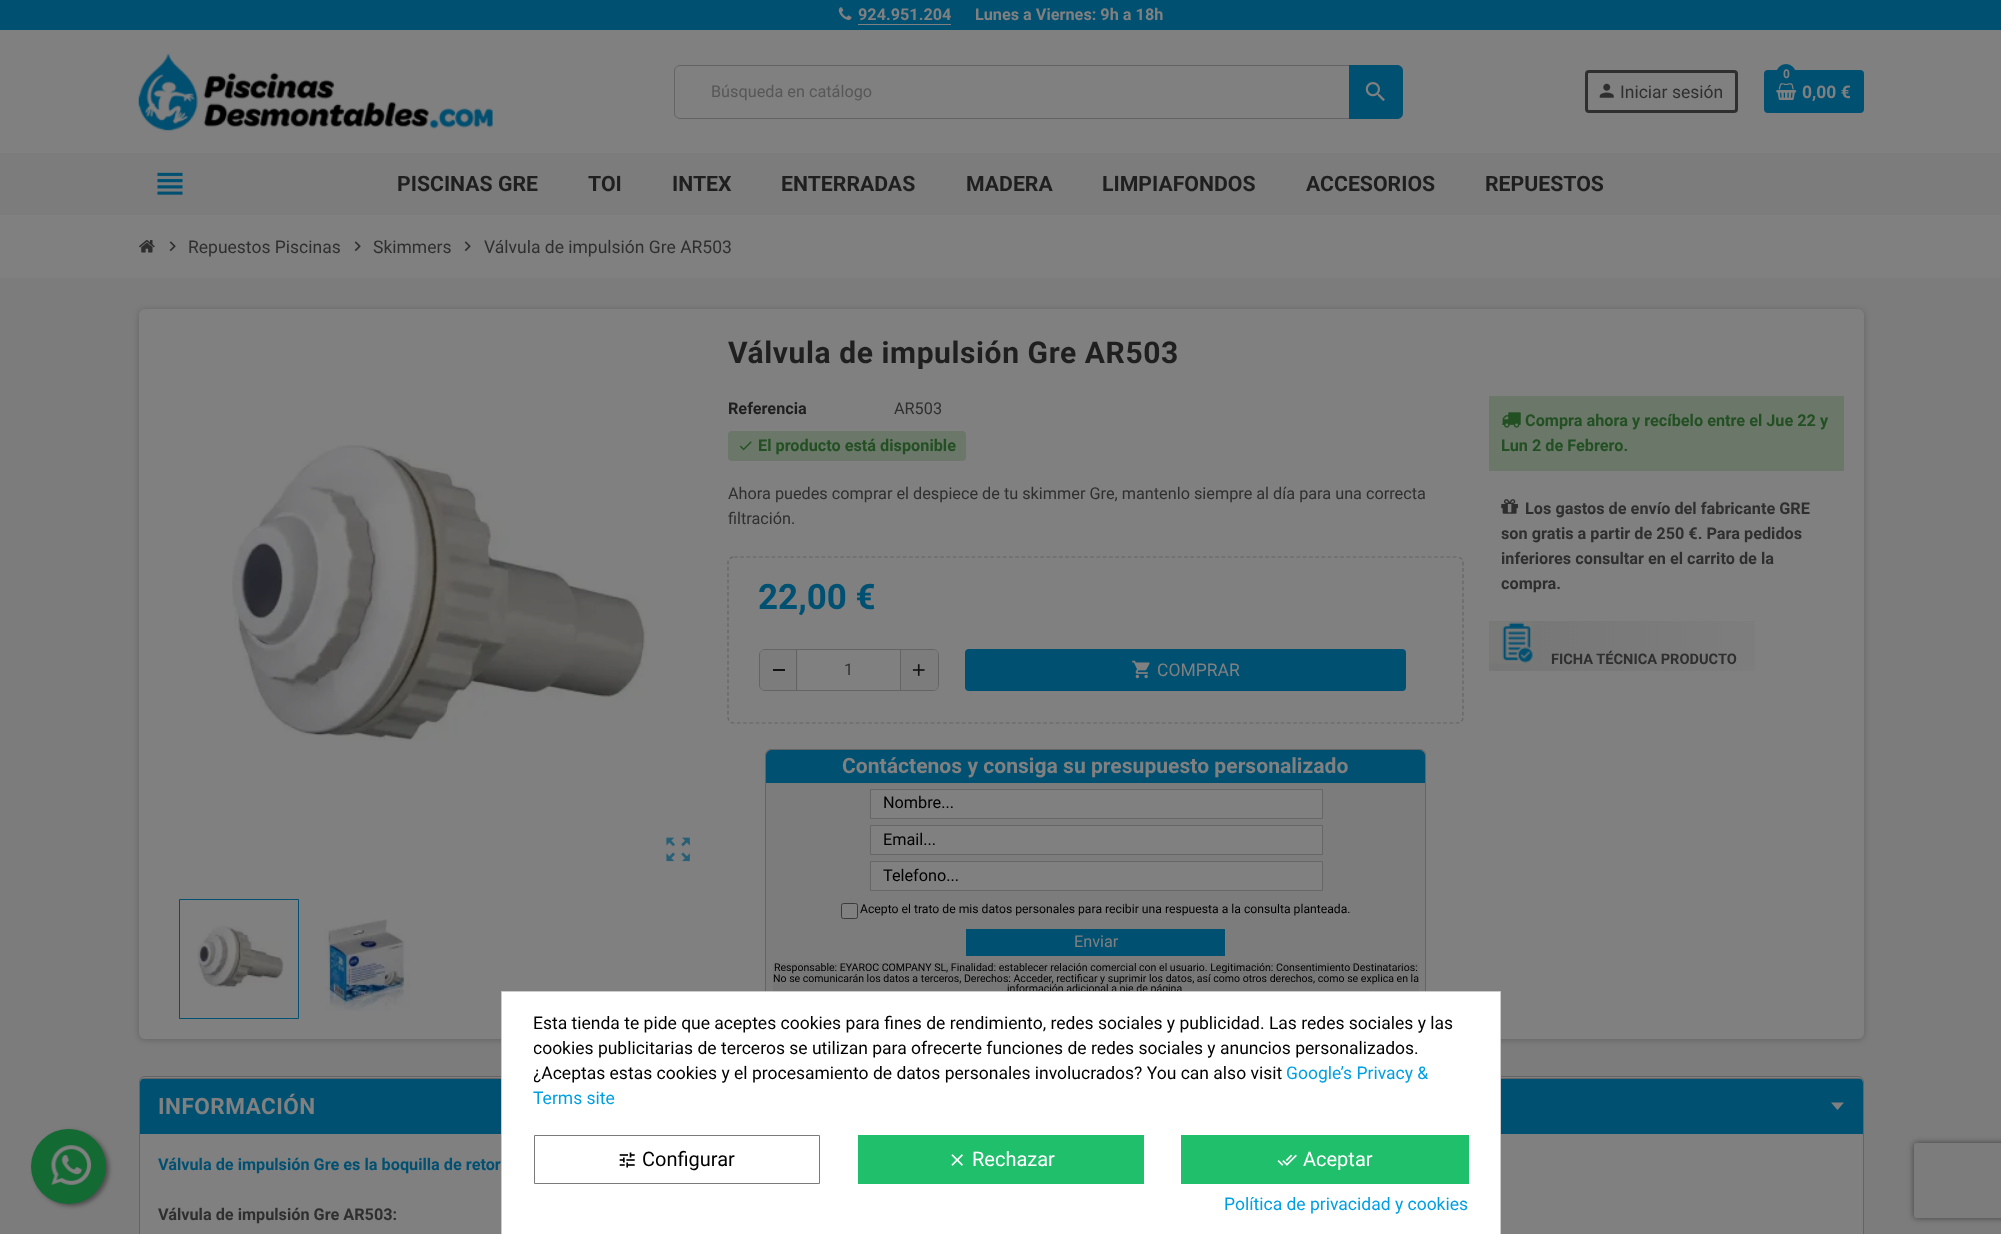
<svg xmlns="http://www.w3.org/2000/svg" width="2001" height="1234">
<style>
.a{font:bold 16.25px Roboto;fill:#808080}
.b{font:16.25px Roboto;fill:#575757}
.c{font:17.5px Roboto;fill:#2f2f2f}
.d{font:bold 12px Roboto;fill:#808080}
.e{font:bold 17.5px Roboto;fill:#808080}
.f{font:bold 21.25px 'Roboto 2';fill:#1f1f1f}
.g{font:bold 30px 'Roboto 2';letter-spacing:0.6px;fill:#1f1f1f}
.h{font:bold 16.25px Roboto;fill:#1f1f1f}
.i{font:16.25px Roboto;fill:#2f2f2f}
.j{font:bold 16.25px Roboto;fill:#235023}
.k{font:bold 35px Roboto;fill:#005072}
.l{font:17.5px Roboto;fill:#808080}
.m{font:bold 21.1px Roboto;fill:#808080}
.n{font:16.25px Roboto;fill:#000}
.o{font:12.2px Roboto;fill:#000}
.p{font:16.25px Roboto;fill:#808080}
.q{font:10.55px Roboto;fill:#000}
.r{font:bold 16.25px Roboto;fill:#2f2f2f}
.s{font:bold 14.6px Roboto;fill:#2f2f2f}
.t{font:bold 22.5px 'Roboto 2';letter-spacing:0.5px;fill:#808080}
.u{font:bold 16.25px Roboto;fill:#005072}
.v{font:17.5px Roboto;fill:#000}
.w{font:17.5px Roboto;fill:#009fe3}
.x{font:20px Roboto;fill:#000}
.y{font:20px Roboto;fill:#fff}
</style>
<defs>
<linearGradient id="g1" gradientUnits="userSpaceOnUse" x1="1489" y1="646" x2="1844" y2="646"><stop offset="0" stop-color="#767676"/><stop offset="1" stop-color="#808080"/></linearGradient>
<clipPath id="clip1"><rect x="140" y="1078" width="1723" height="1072" rx="5"/></clipPath>
<clipPath id="clip2"><path d="M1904 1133h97v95h-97zm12.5 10h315c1.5 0 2.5 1 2.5 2.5v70c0 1.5-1 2.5-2.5 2.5h-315c-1.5 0-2.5-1-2.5-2.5v-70c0-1.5 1-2.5 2.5-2.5z" clip-rule="evenodd"/></clipPath>
<clipPath id="clip3"><path d="M534 1010h935v100H534z"/></clipPath>
</defs>
<rect width="100%" height="100%" fill="#808080"/>
<path fill="#005072" d="M0 0h2001v30H0z"/>
<image href="1.png" x="838" y="7" width="14" height="13"/>
<path fill="#808080" d="M858 24h93v1H858z"/>
<image href="2.png" x="138" y="53" width="355" height="79"/>
<rect fill="none" stroke="#646464" x="674.5" y="65.5" width="726" height="53" rx="5.5"/>
<path fill="#005072" d="M1349 65h48c3.5 0 6 2.5 6 6v42c0 3.5-2.5 6-6 6h-48z"/>
<image href="3.png" x="1365" y="82" width="20" height="20"/>
<rect fill="none" stroke="#2f2f2f" stroke-width="3" x="1586.5" y="71.5" width="150" height="40" rx="2.5"/>
<image href="4.png" x="1599" y="83" width="15" height="15"/>
<rect fill="#005072" x="1764" y="70" width="100" height="43" rx="4"/>
<image href="5.png" x="1776" y="83" width="21" height="17"/>
<circle fill="#005072" cx="1786" cy="74" r="10"/>
<path fill="#7c7c7c" d="M0 153h2001v62H0z"/>
<image href="6.png" x="157" y="172" width="26" height="23"/>
<path fill="#7c7c7c" d="M0 278h2001v956H0z"/>
<image href="7.png" x="139" y="240" width="16" height="13"/>
<image href="8.png" x="169" y="241" width="7" height="11"/>
<image href="8.png" x="354" y="241" width="7" height="11"/>
<image href="8.png" x="464" y="241" width="7" height="11"/>
<rect fill="#00000033" filter="blur(3px)" x="139" y="310" width="1725" height="730" rx="6"/>
<rect fill="#808080" x="139" y="309" width="1725" height="730" rx="6"/>
<image href="9.png" x="232" y="445" width="415" height="296"/>
<image href="10.png" x="666" y="837" width="24" height="25"/>
<path fill="none" stroke="#005072" d="M179.5 899.5h119v119H179.5z"/>
<image href="11.png" x="197" y="926" width="87" height="62"/>
<image href="12.png" x="325" y="919" width="85" height="92"/>
<rect fill="#6b7769" x="728" y="431" width="238" height="30" rx="4"/>
<image href="13.png" x="739" y="441" width="13" height="10"/>
<path fill="none" stroke="#646464" stroke-width="1.2" stroke-dasharray="3.75 2.5" d="M734 557h723.5c3 0 5.5 2.5 5.5 5.5v155c0 3-2.5 5.5-5.5 5.5h-723.5c-3.5 0-6-2.5-6-5.5v-155c0-3 2.5-5.5 6-5.5z"/>
<rect fill="none" stroke="#646464" x="759.5" y="649.5" width="179" height="41" rx="5.5"/>
<path fill="#7c7c7c" d="M765 650h33v40h-33c-3 0-5-2-5-5v-30c0-3 2-5 5-5z"/>
<path fill="#111315" d="M773 669h12v2H773z"/>
<path fill="#7c7c7c" d="M900 650h33c3 0 5 2 5 5v30c0 3-2 5-5 5h-33z"/>
<path fill="#646464" d="M900 650h1v40H900z"/>
<path fill="#646464" d="M796 650h1v40H796z"/>
<image href="14.png" x="912" y="664" width="13" height="12"/>
<rect fill="#005072" x="965" y="649" width="441" height="42" rx="4"/>
<image href="15.png" x="1132" y="660" width="18" height="19"/>
<rect fill="#7c7c7c" stroke="#646464" x="765.5" y="749.5" width="660" height="251" rx="5.5"/>
<path fill="#005072" d="M772 750h647c3.5 0 6 2.5 6 6v27h-659v-27c0-3.5 2.5-6 6-6z"/>
<path fill="#808080" stroke="#666" d="M870.5 789.5h452v29H870.5z"/>
<path fill="#808080" stroke="#666" d="M870.5 825.5h452v29H870.5z"/>
<path fill="#808080" stroke="#666" d="M870.5 861.5h452v29H870.5z"/>
<rect fill="#808080" stroke="#3b3b3b" x="841.5" y="903.5" width="16" height="15" rx="2"/>
<path fill="#005072" d="M966 929h259v27H966z"/>
<path fill="#777" d="M773 963h646v28H773z"/>
<path fill="#6b7769" d="M1489 396h355v75H1489z"/>
<image href="16.png" x="1502" y="412" width="19" height="16"/>
<image href="17.png" x="1501" y="499" width="17" height="15"/>
<path fill="url(#g1)" d="M1489 621h266v50H1489z"/>
<image href="18.png" x="1489" y="621" width="44" height="43"/>
<rect fill="#808080" stroke="#646464" x="139.5" y="1076.5" width="1724" height="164" rx="5.5"/>
<g clip-path="url(#clip1)">
<path fill="#646464" d="M140 1078h1723v1H140z"/>
<path fill="#005072" d="M140 1079h1723v55H140z"/>
</g>
<path fill="#808080" d="M1831 1102.5h13l-6.5 7.5z"/>
<g clip-path="url(#clip2)">
<rect fill="#404040" filter="blur(3px)" x="1914" y="1143" width="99" height="75" rx="2.5"/>
</g>
<rect fill="#4d4d4d" filter="blur(2px)" x="34" y="1131" width="75" height="75" rx="37.5"/>
<circle fill="#136a33" cx="68.5" cy="1166.5" r="37.5"/>
<image href="19.png" x="51" y="1145" width="41" height="40"/>
<text class="a" x="858" y="20">924.951.204</text>
<text class="a" x="975" y="20">Lunes a Viernes: 9h a 18h</text>
<text class="b" x="711" y="97">Búsqueda en catálogo</text>
<text class="c" x="1620" y="98">Iniciar sesión</text>
<text class="d" x="1783" y="78">0</text>
<text class="e" x="1802" y="98">0,00 €</text>
<text class="f" x="397" y="191">PISCINAS GRE</text>
<text class="f" x="588" y="191">TOI</text>
<text class="f" x="672" y="191">INTEX</text>
<text class="f" x="781" y="191">ENTERRADAS</text>
<text class="f" x="966" y="191">MADERA</text>
<text class="f" x="1102" y="191">LIMPIAFONDOS</text>
<text class="f" x="1306" y="191">ACCESORIOS</text>
<text class="f" x="1485" y="191">REPUESTOS</text>
<text class="c" x="188" y="253">Repuestos Piscinas</text>
<text class="c" x="373" y="253">Skimmers</text>
<text class="c" x="484" y="253">Válvula de impulsión Gre AR503</text>
<text class="g" x="728" y="363">Válvula de impulsión Gre AR503</text>
<text class="h" x="728" y="414">Referencia</text>
<text class="i" x="894" y="414">AR503</text>
<text class="j" x="758" y="451">El producto está disponible</text>
<text class="i" x="728" y="499">Ahora puedes comprar el despiece de tu skimmer Gre, mantenlo siempre al día para una correcta</text>
<text class="i" x="728" y="524">filtración.</text>
<text class="k" x="758" y="609">22,00 €</text>
<text class="i" x="844" y="675">1</text>
<text class="l" x="1157" y="676">COMPRAR</text>
<text class="m" x="842" y="773">Contáctenos y consiga su presupuesto personalizado</text>
<text class="n" x="883" y="808">Nombre...</text>
<text class="n" x="883" y="845">Email...</text>
<text class="n" x="883" y="881">Telefono...</text>
<text class="o" x="860" y="913">Acepto el trato de mis datos personales para recibir una respuesta a la consulta planteada.</text>
<text class="p" x="1074" y="947">Enviar</text>
<text class="q" x="774" y="971">Responsable: EYAROC COMPANY SL, Finalidad: establecer relación comercial con el usuario. Legitimación: Consentimiento Destinatarios:</text>
<text class="q" x="773" y="982">No se comunicarán los datos a terceros, Derechos: Acceder, rectificar y suprimir los datos, así como otros derechos, como se explica en la</text>
<text class="q" x="1007" y="992">información adicional a pie de página</text>
<text class="j" x="1525" y="426">Compra ahora y recíbelo entre el Jue 22 y</text>
<text class="j" x="1501" y="451">Lun 2 de Febrero.</text>
<text class="r" x="1525" y="514">Los gastos de envío del fabricante GRE</text>
<text class="r" x="1501" y="539">son gratis a partir de 250 €. Para pedidos</text>
<text class="r" x="1501" y="564">inferiores consultar en el carrito de la</text>
<text class="r" x="1501" y="589">compra.</text>
<text class="s" x="1551" y="664">FICHA TÉCNICA PRODUCTO</text>
<text class="t" x="158" y="1114">INFORMACIÓN</text>
<text class="u" x="158" y="1170">Válvula de impulsión Gre es la boquilla de retor</text>
<text class="r" x="158" y="1220">Válvula de impulsión Gre AR503:</text>
<path fill="#fff" stroke="#ccc" d="M501.5 991.5h999v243H501.5z"/>
<text class="v" x="533" y="1029">Esta tienda te pide que aceptes cookies para fines de rendimiento, redes sociales y publicidad. Las redes sociales y las</text>
<g clip-path="url(#clip3)">
<text class="v" x="533" y="1054">cookies publicitarias de terceros se utilizan para ofrecerte funciones de redes sociales y anuncios personalizados.</text>
<text class="v" x="533" y="1079">¿Aceptas estas cookies y el procesamiento de datos personales involucrados? You can also visit</text>
</g>
<text class="w" x="1286" y="1079">Google’s Privacy &amp;</text>
<text class="w" x="533" y="1104">Terms site</text>
<path fill="none" stroke="#7a7a7a" d="M534.5 1135.5h285v48H534.5z"/>
<image href="20.png" x="619" y="1152" width="16" height="16"/>
<text class="x" x="642" y="1166">Configurar</text>
<path fill="#20bf6b" d="M858 1135h286v49H858z"/>
<image href="21.png" x="951" y="1154" width="12" height="12"/>
<text class="y" x="972" y="1166">Rechazar</text>
<path fill="#20bf6b" d="M1181 1135h288v49H1181z"/>
<image href="22.png" x="1277" y="1154" width="20" height="12"/>
<text class="y" x="1303" y="1166">Aceptar</text>
<text class="w" x="1224" y="1210">Política de privacidad y cookies</text>
</svg>
